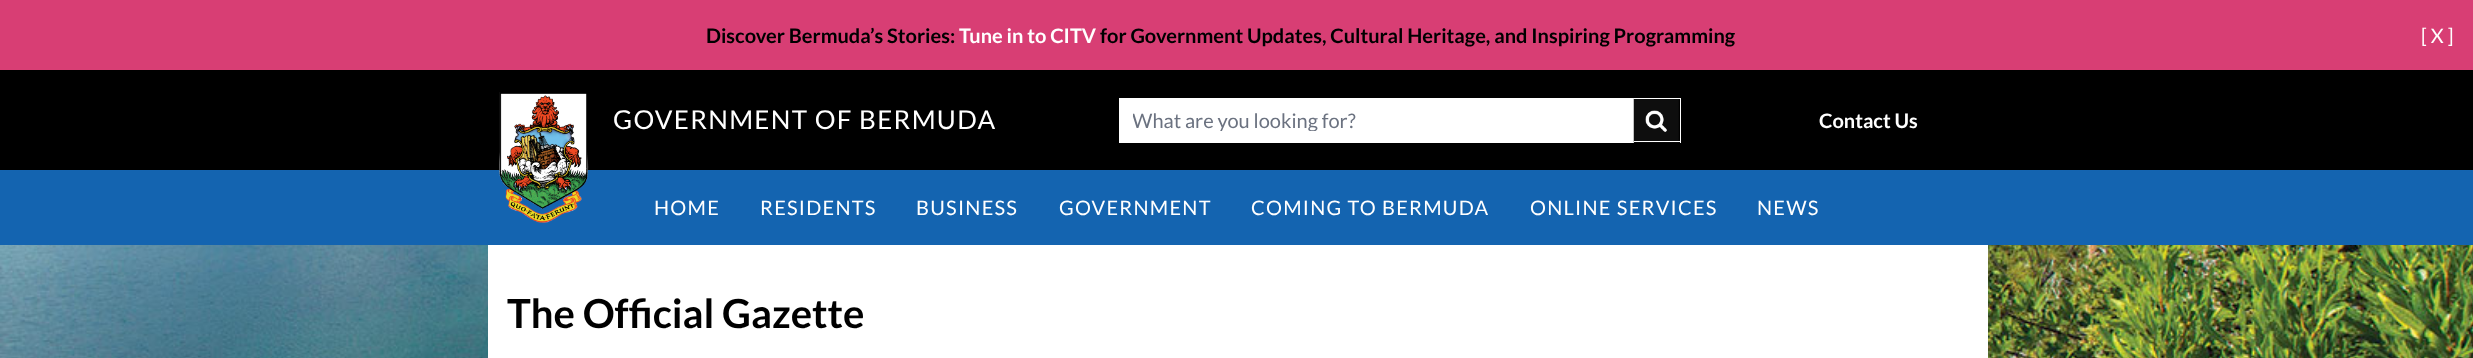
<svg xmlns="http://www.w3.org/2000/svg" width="2473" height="358">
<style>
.a{font:bold 20px Lato;fill:#000}
.b{font:bold 20px Lato;fill:#fff}
.c{font:20px Lato;fill:#fff}
.d{font:26px Lato;letter-spacing:1.3px;fill:#fff}
.e{font:20px Lato;fill:#6b7280}
.f{font:20px Lato;letter-spacing:1.25px;fill:#fff}
.g{font:bold 40px Lato;fill:#000}
</style>
<defs>
<clipPath id="clip1"><path d="M1133 108h482v23H1133z"/></clipPath>
</defs>
<rect width="100%" height="100%" fill="#fff"/>
<path fill="#d83e74" d="M0 0h2473v70H0z"/>
<path fill="#000" d="M0 70h2473v100H0z"/>
<path fill="#1464b0" d="M0 170h2473v75H0z"/>
<image href="1.png" x="499" y="92" width="90" height="131"/>
<path fill="#fff" d="M1119 98h515v45H1119z"/>
<image href="2.png" x="1633" y="98" width="46" height="45"/>
<path fill="#fff" d="M1634 98h47v1H1634z"/>
<path fill="#fff" d="M1680 98h1v45H1680z"/>
<path fill="#fff" d="M1634 141h47v1H1634z"/>
<image href="3.png" x="0" y="245" width="2473" height="113"/>
<path fill="#fff" d="M488 245h1500v113H488z"/>
<text class="a" x="706" y="43">Discover Bermuda’s Stories:</text>
<text class="b" x="959" y="43">Tune in to CITV</text>
<text class="a" x="1100" y="43">for Government Updates, Cultural Heritage, and Inspiring Programming</text>
<text class="c" x="2421" y="43">[ X ]</text>
<text class="d" x="613" y="129">GOVERNMENT OF BERMUDA</text>
<g clip-path="url(#clip1)">
<text class="e" x="1132" y="128">What are you looking for?</text>
</g>
<text class="b" x="1819" y="128">Contact Us</text>
<text class="f" x="654" y="215">HOME</text>
<text class="f" x="760" y="215">RESIDENTS</text>
<text class="f" x="916" y="215">BUSINESS</text>
<text class="f" x="1059" y="215">GOVERNMENT</text>
<text class="f" x="1251" y="215">COMING TO BERMUDA</text>
<text class="f" x="1530" y="215">ONLINE SERVICES</text>
<text class="f" x="1757" y="215">NEWS</text>
<text class="g" x="507" y="328">The Official Gazette</text>
</svg>
